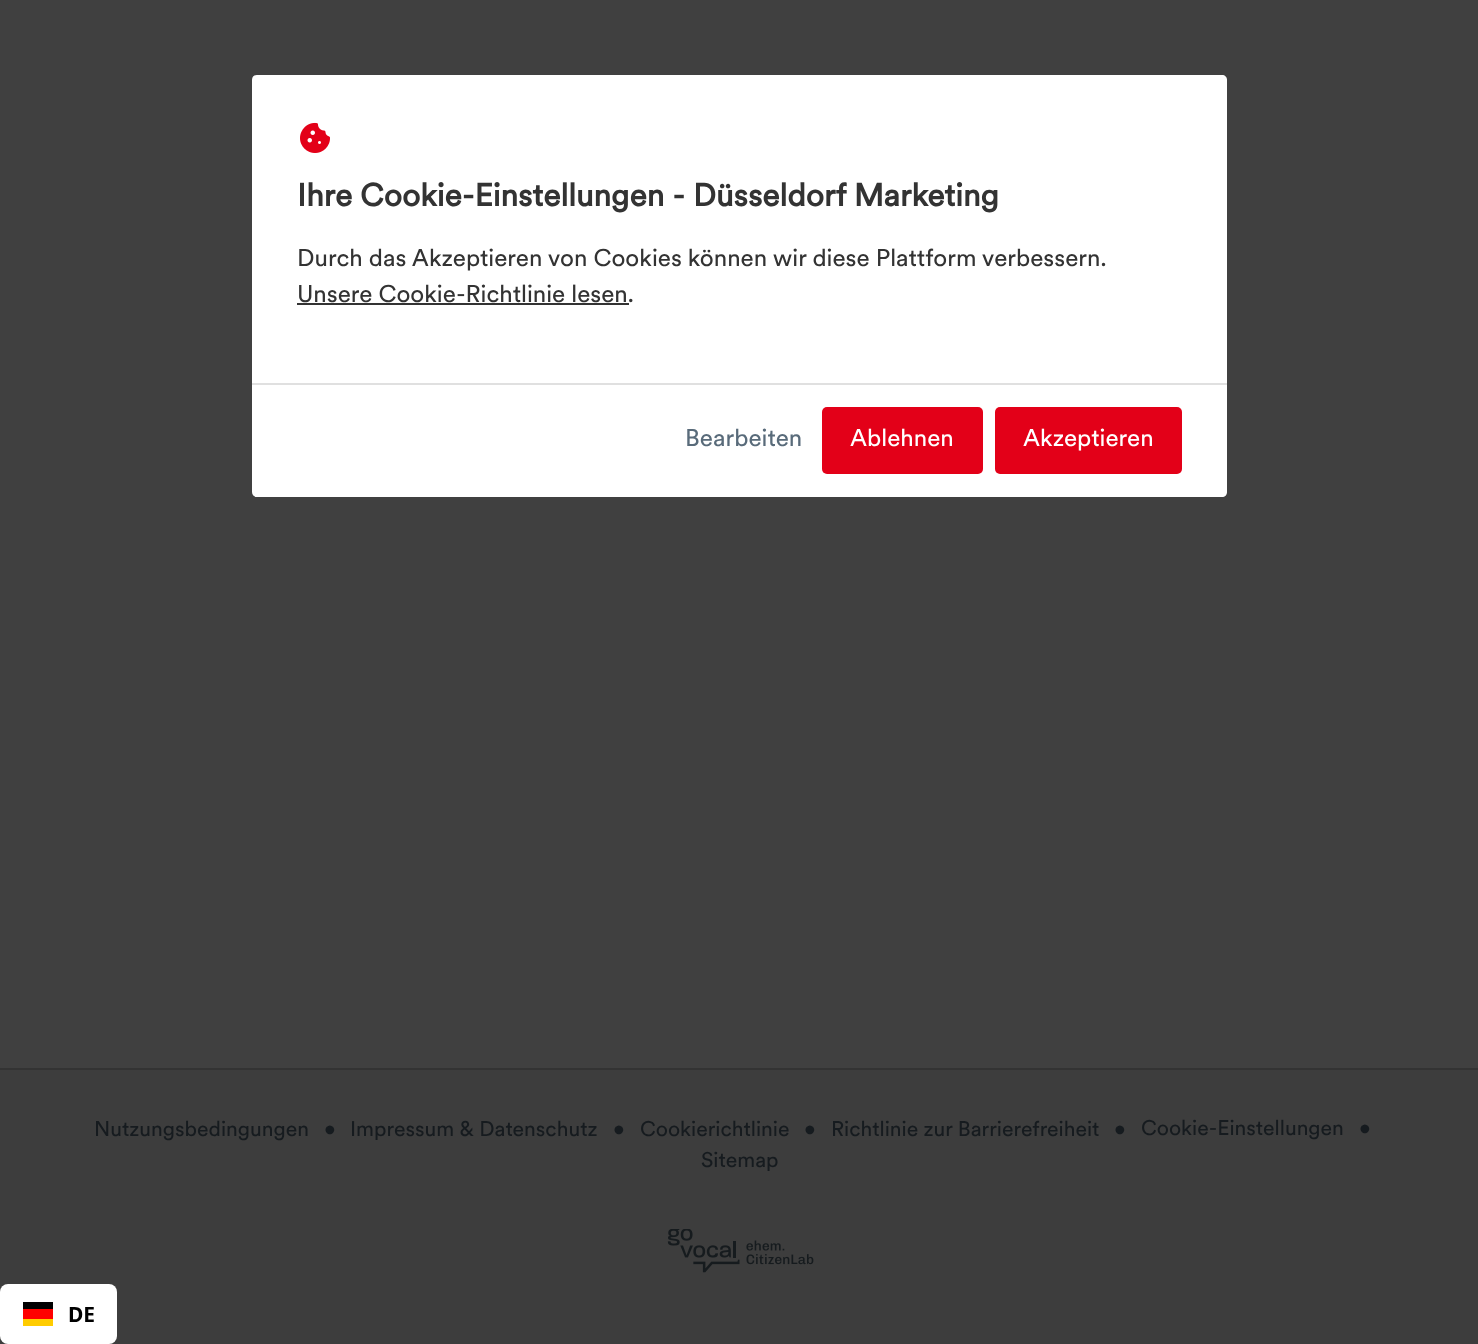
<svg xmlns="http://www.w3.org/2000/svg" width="1478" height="1344">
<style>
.a{font:bold 31.5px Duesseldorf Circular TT;fill:#333}
.b{font:24px Duesseldorf Circular TT;fill:#333}
.c{font:24px Duesseldorf Circular TT;fill:#596b7a}
.d{font:24px Duesseldorf Circular TT;fill:#fff}
.e{font:21px Duesseldorf Circular TT;fill:#161b1f}
.f{font:bold 21px Noto Sans;fill:#000}
</style>
<rect width="100%" height="100%" fill="#404040"/>
<path fill="#fff" d="M257 75h965c3 0 5 2 5 5v303h-975v-303c0-3 2-5 5-5z"/>
<image href="1.png" x="300" y="122" width="30" height="31"/>
<path fill="#333" d="M297 303h332v2H297z"/>
<path fill="#fff" d="M252 383h975v109c0 3-2 5-5 5h-965c-3 0-5-2-5-5z"/>
<path fill="#e0e0e0" d="M252 383h975v2H252z"/>
<rect fill="#e30018" x="822" y="407" width="161" height="67" rx="5"/>
<rect fill="#e30018" x="995" y="407" width="187" height="67" rx="5"/>
<path fill="#3d3d3d" d="M0 1070h1478v274H0z"/>
<path fill="#333" d="M0 1068h1478v2H0z"/>
<image href="2.png" x="667" y="1229" width="147" height="44"/>
<rect fill="#fff" y="1284" width="117" height="60" rx="8"/>
<path fill="#fc0" d="M23 1319h30v7H23z"/>
<path fill="#000001" d="M23 1302h30v7H23z"/>
<path fill="#f00" d="M23 1309h30v10H23z"/>
<text class="a" x="297" y="206">Ihre Cookie-Einstellungen - Düsseldorf Marketing</text>
<text class="b" x="297" y="266">Durch das Akzeptieren von Cookies können wir diese Plattform verbessern.</text>
<text class="b" x="297" y="302">Unsere Cookie-Richtlinie lesen.</text>
<text class="c" x="685" y="446">Bearbeiten</text>
<text class="d" x="850" y="446">Ablehnen</text>
<text class="d" x="1023" y="446">Akzeptieren</text>
<text class="e" x="94" y="1136">Nutzungsbedingungen</text>
<text class="e" x="324" y="1136">•</text>
<text class="e" x="350" y="1136">Impressum &amp; Datenschutz</text>
<text class="e" x="613" y="1136">•</text>
<text class="e" x="640" y="1136">Cookierichtlinie</text>
<text class="e" x="804" y="1136">•</text>
<text class="e" x="831" y="1136">Richtlinie zur Barrierefreiheit</text>
<text class="e" x="1114" y="1136">•</text>
<text class="e" x="1141" y="1135">Cookie-Einstellungen</text>
<text class="e" x="1359" y="1135">•</text>
<text class="e" x="701" y="1167">Sitemap</text>
<text class="f" x="68" y="1322">DE</text>
</svg>
